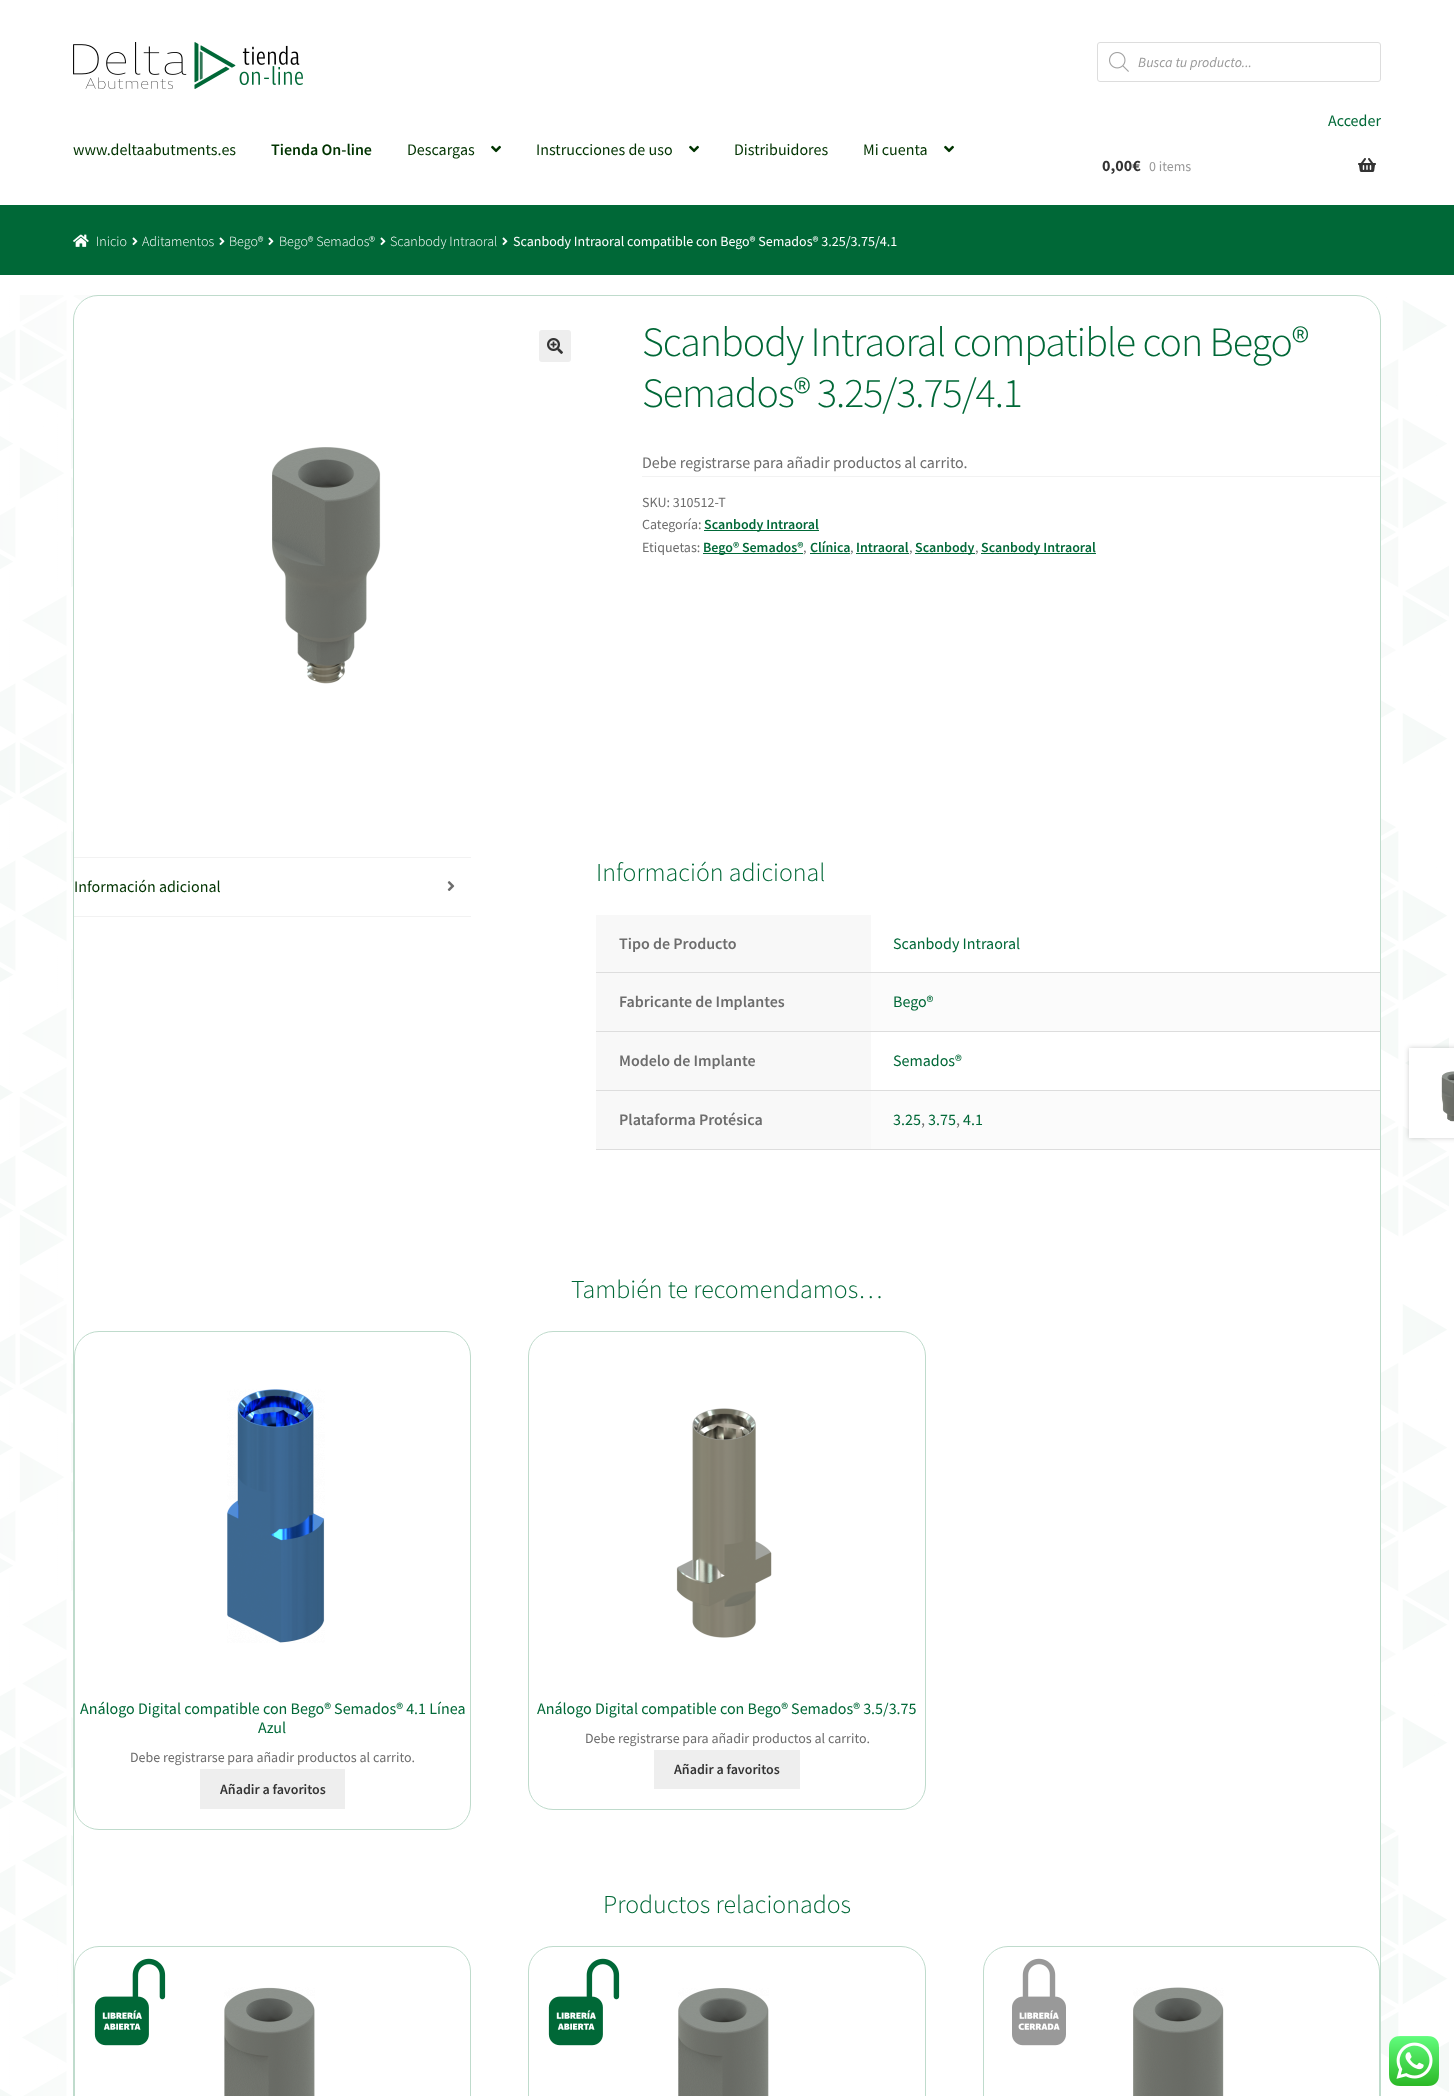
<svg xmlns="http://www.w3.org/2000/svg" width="1454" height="2096">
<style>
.a{font:italic 14px Source Sans Pro;fill:#999}
.b{font:16px Source Sans Pro;fill:#006837}
.c{font:16px Source Sans Pro;fill:#030}
.d{font:600 16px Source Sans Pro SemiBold;fill:#030}
.e{font:bold 16px Source Sans Pro;fill:#333}
.f{font:14px Source Sans Pro;fill:#999}
.g{font:300 14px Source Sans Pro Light;fill:#fff}
.h{font:14px Source Sans Pro;fill:#fff}
.i{font:300 41.9px Source Sans Pro Light;letter-spacing:-1px;fill:#006837}
.j{font:16px Source Sans Pro;fill:#6d6d6d}
.k{font:14px Source Sans Pro;fill:#6d6d6d}
.l{font:600 14px Source Sans Pro SemiBold;fill:#006837}
.m{font:300 25.9px Source Sans Pro Light;fill:#006837}
.n{font:600 16px Source Sans Pro SemiBold;fill:#6d6d6d}
.o{font:600 14px Source Sans Pro SemiBold;fill:#333}
</style>
<rect width="100%" height="100%" fill="#fff"/>
<image href="1.png" x="73" y="42" width="230" height="47"/>
<rect fill="none" stroke="#ddd" x="1097.5" y="42.5" width="283" height="39" rx="2.5"/>
<image href="2.png" x="1109" y="52" width="20" height="20"/>
<image href="3.png" x="491" y="145" width="10" height="8"/>
<image href="3.png" x="689" y="145" width="10" height="8"/>
<image href="3.png" x="944" y="145" width="10" height="8"/>
<image href="4.png" x="1358" y="158" width="18" height="14"/>
<path fill="#006837" d="M0 205h1454v70H0z"/>
<image href="5.png" x="73" y="234" width="16" height="13"/>
<image href="6.png" x="132" y="237" width="6" height="9"/>
<image href="6.png" x="219" y="237" width="6" height="9"/>
<image href="6.png" x="268" y="237" width="6" height="9"/>
<image href="6.png" x="380" y="237" width="6" height="9"/>
<image href="6.png" x="502" y="237" width="6" height="9"/>
<image href="7.png" x="0" y="295" width="1449" height="1801"/>
<rect fill="#fff" stroke="#bfdbcc" x="73.5" y="295.5" width="1307" height="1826" rx="24.5"/>
<rect fill="#eee" x="539" y="330" width="32" height="32" rx="3"/>
<image href="8.png" x="547" y="338" width="16" height="16"/>
<image href="9.png" x="272" y="447" width="109" height="237"/>
<path fill="#f2f2f2" d="M642 476h738v1H642z"/>
<path fill="#006837" d="M704 530h115v1H704z"/>
<path fill="#006837" d="M703 553h100v1H703z"/>
<path fill="#006837" d="M810 553h40v1H810z"/>
<path fill="#006837" d="M856 553h53v1H856z"/>
<path fill="#006837" d="M915 553h60v1H915z"/>
<path fill="#006837" d="M981 553h115v1H981z"/>
<path fill="#f2f2f2" d="M74 857h397v1H74z"/>
<path fill="#f2f2f2" d="M74 916h397v1H74z"/>
<image href="10.png" x="447" y="881" width="8" height="10"/>
<path fill="#f8f8f8" d="M596 915h275v57H596z"/>
<path fill="#ddd" d="M596 972h784v1H596z"/>
<path fill="#f8f8f8" d="M596 973h275v58H596z"/>
<path fill="#ddd" d="M596 1031h784v1H596z"/>
<path fill="#fbfbfb" d="M871 973h509v58H871z"/>
<path fill="#f8f8f8" d="M596 1032h275v58H596z"/>
<path fill="#ddd" d="M596 1090h784v1H596z"/>
<path fill="#f8f8f8" d="M596 1091h275v58H596z"/>
<path fill="#ddd" d="M596 1149h784v1H596z"/>
<path fill="#fbfbfb" d="M871 1091h509v58H871z"/>
<path fill="#00000033" filter="blur(2.5px)" d="M1409 1048h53v90H1409z"/>
<path fill="#fff" d="M1409 1048h45v90H1409z"/>
<image href="11.png" x="1441" y="1071" width="13" height="51"/>
<rect fill="none" stroke="#bfdbcc" x="74.5" y="1331.5" width="396" height="498" rx="24.5"/>
<image href="12.png" x="227" y="1389" width="98" height="254"/>
<path fill="#eee" d="M200 1769h145v40H200z"/>
<rect fill="none" stroke="#bfdbcc" x="528.5" y="1331.5" width="397" height="478" rx="24.5"/>
<image href="13.png" x="676" y="1408" width="96" height="230"/>
<path fill="#eee" d="M654 1750h146v39H654z"/>
<image href="14.png" x="94" y="1958" width="72" height="88"/>
<rect fill="none" stroke="#bfdbcc" x="74.5" y="1946.5" width="396" height="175" rx="24.5"/>
<image href="15.png" x="224" y="1987" width="91" height="109"/>
<image href="14.png" x="548" y="1958" width="72" height="88"/>
<rect fill="none" stroke="#bfdbcc" x="528.5" y="1946.5" width="397" height="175" rx="24.5"/>
<image href="16.png" x="678" y="1988" width="91" height="108"/>
<image href="17.png" x="1012" y="1958" width="54" height="88"/>
<rect fill="none" stroke="#bfdbcc" x="983.5" y="1946.5" width="396" height="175" rx="24.5"/>
<image href="18.png" x="1133" y="1987" width="91" height="109"/>
<image href="19.png" x="1389" y="2036" width="50" height="50"/>
<text class="a" x="1138" y="67">Busca tu producto...</text>
<text class="b" x="1328" y="126">Acceder</text>
<text class="c" x="73" y="155">www.deltaabutments.es</text>
<text class="d" x="271" y="155">Tienda On-line</text>
<text class="c" x="407" y="155">Descargas</text>
<text class="c" x="536" y="155">Instrucciones de uso</text>
<text class="c" x="734" y="155">Distribuidores</text>
<text class="c" x="863" y="155">Mi cuenta</text>
<text class="e" x="1102" y="171">0,00€</text>
<text class="f" x="1149" y="171">0 items</text>
<text class="g" x="96" y="246">Inicio</text>
<text class="g" x="142" y="246">Aditamentos</text>
<text class="g" x="229" y="246">Bego®</text>
<text class="g" x="279" y="246">Bego® Semados®</text>
<text class="g" x="390" y="246">Scanbody Intraoral</text>
<text class="h" x="513" y="246">Scanbody Intraoral compatible con Bego® Semados® 3.25/3.75/4.1</text>
<text class="i" x="642" y="356">Scanbody Intraoral compatible con Bego®</text>
<text class="i" x="642" y="407">Semados® 3.25/3.75/4.1</text>
<text class="j" x="642" y="468">Debe registrarse para añadir productos al carrito.</text>
<text class="k" x="642" y="507">SKU: 310512-T</text>
<text class="k" x="642" y="529">Categoría:</text>
<text class="l" x="704" y="529">Scanbody Intraoral</text>
<text class="k" x="642" y="552">Etiquetas:</text>
<text class="l" x="703" y="552">Bego® Semados®</text>
<text class="k" x="803" y="552">,</text>
<text class="l" x="810" y="552">Clínica</text>
<text class="k" x="850" y="552">,</text>
<text class="l" x="856" y="552">Intraoral</text>
<text class="k" x="909" y="552">,</text>
<text class="l" x="915" y="552">Scanbody</text>
<text class="k" x="975" y="552">,</text>
<text class="l" x="981" y="552">Scanbody Intraoral</text>
<text class="c" x="74" y="892">Información adicional</text>
<text class="m" x="596" y="881">Información adicional</text>
<text class="n" x="619" y="949">Tipo de Producto</text>
<text class="b" x="893" y="949">Scanbody Intraoral</text>
<text class="n" x="619" y="1007">Fabricante de Implantes</text>
<text class="b" x="893" y="1007">Bego®</text>
<text class="n" x="619" y="1066">Modelo de Implante</text>
<text class="b" x="893" y="1066">Semados®</text>
<text class="n" x="619" y="1125">Plataforma Protésica</text>
<text class="b" x="893" y="1125">3.25</text>
<text class="j" x="921" y="1125">,</text>
<text class="b" x="928" y="1125">3.75</text>
<text class="j" x="956" y="1125">,</text>
<text class="b" x="963" y="1125">4.1</text>
<text class="m" x="571" y="1298">También te recomendamos…</text>
<text class="b" x="80" y="1714">Análogo Digital compatible con Bego® Semados® 4.1 Línea</text>
<text class="b" x="258" y="1733">Azul</text>
<text class="k" x="130" y="1762">Debe registrarse para añadir productos al carrito.</text>
<text class="o" x="220" y="1794">Añadir a favoritos</text>
<text class="b" x="537" y="1714">Análogo Digital compatible con Bego® Semados® 3.5/3.75</text>
<text class="k" x="585" y="1743">Debe registrarse para añadir productos al carrito.</text>
<text class="o" x="674" y="1774">Añadir a favoritos</text>
<text class="m" x="603" y="1913">Productos relacionados</text>
</svg>
